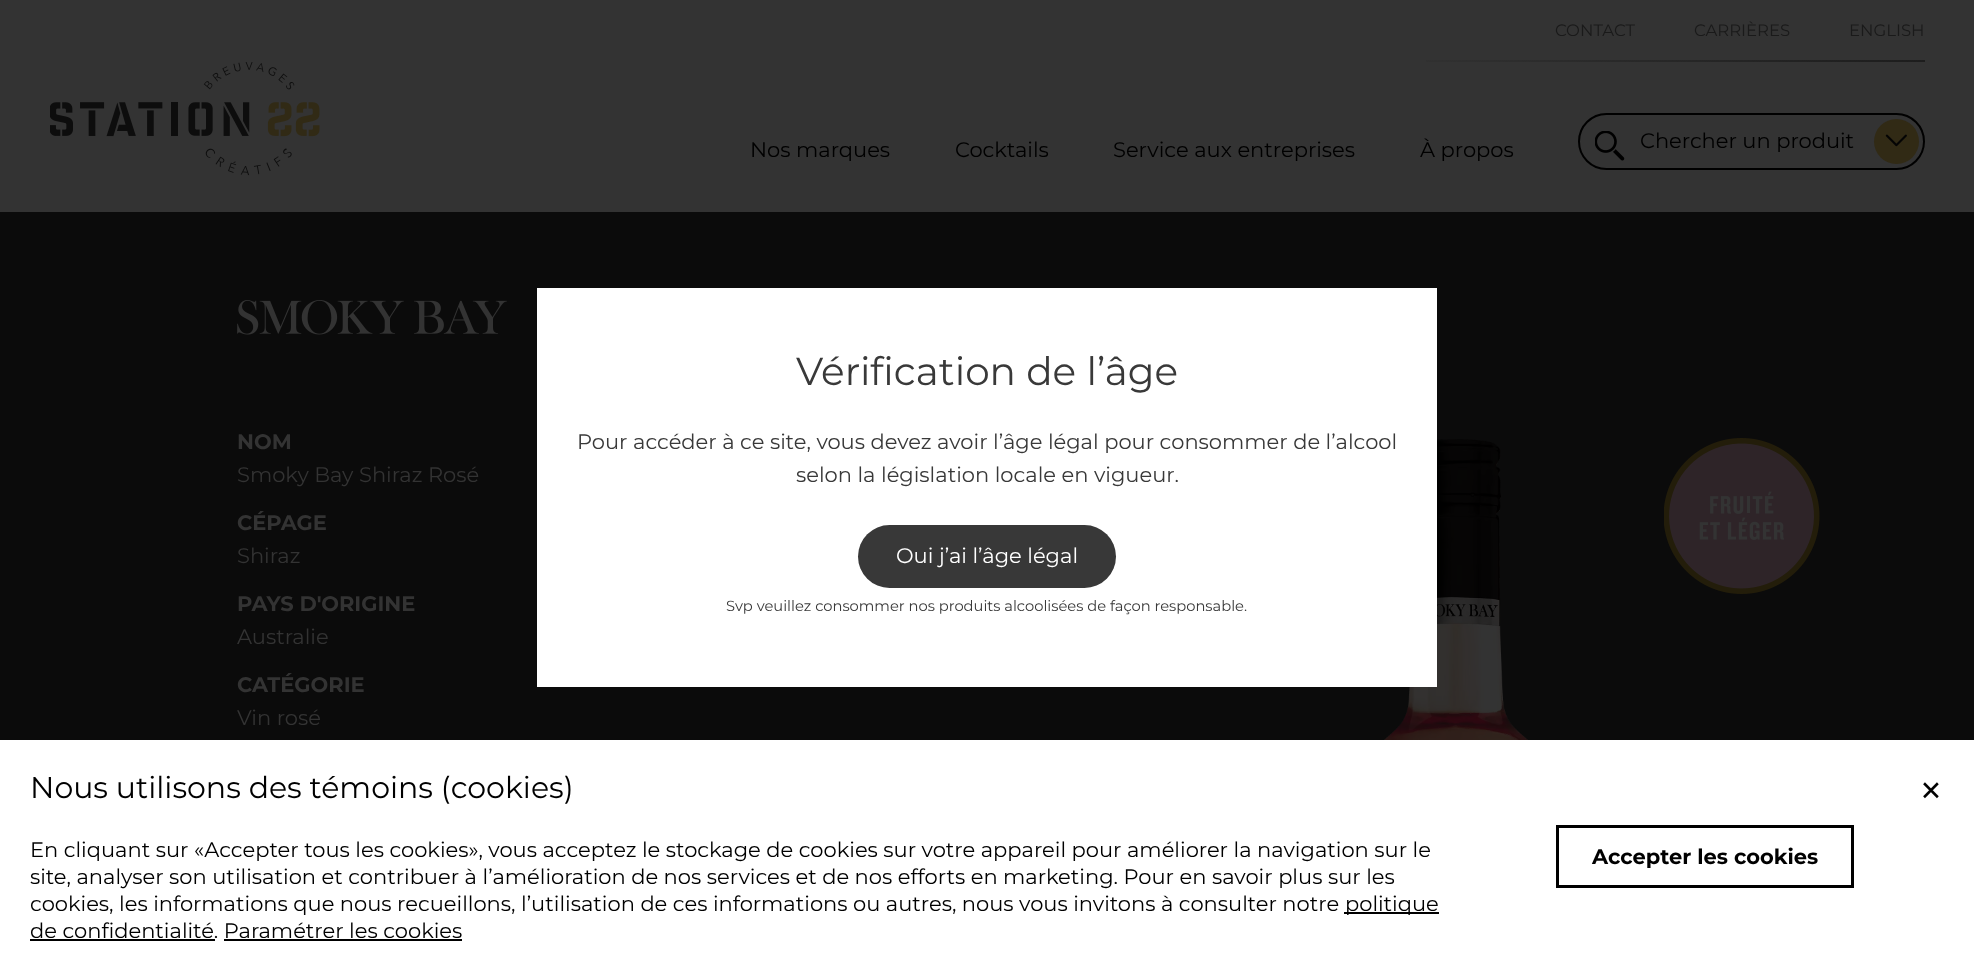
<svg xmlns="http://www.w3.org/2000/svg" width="1974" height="973">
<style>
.a{font:16.5px Montserrat;fill:#1a1a1a}
.b{font:21px Montserrat;fill:#000}
.c{font:bold 21px Montserrat;fill:#333}
.d{font:21px Montserrat;fill:#333}
.e{font:39px Montserrat;fill:#393939}
.f{font:21px Montserrat;fill:#393939}
.g{font:21px Montserrat;fill:#fff}
.h{font:14.7px Montserrat;fill:#393939}
.i{font:30px Montserrat;fill:#000}
.j{font:bold 21px Montserrat;fill:#000}
.k{font:45px Montserrat;fill:#000}
</style>
<defs>
<linearGradient id="g1" gradientUnits="userSpaceOnUse" x1="50" y1="61" x2="1925" y2="61"><stop offset="0.7" stop-color="#333"/><stop offset="1" stop-color="#1d1d1d"/><stop offset="1" stop-color="#333"/></linearGradient>
<linearGradient id="g2" gradientUnits="userSpaceOnUse" x1="987" y1="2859" x2="987" y2="0"><stop offset="0" stop-color="#000"/><stop offset="0.65" stop-color="#0b0b0b"/></linearGradient>
</defs>
<rect width="100%" height="100%" fill="#fff"/>
<path fill="#333" d="M0 0h1974v212H0z"/>
<path fill="url(#g1)" d="M1426 60h499v2H1426z"/>
<image href="1.png" x="50" y="62" width="270" height="114"/>
<rect fill="none" stroke="#000" stroke-width="2" x="1579" y="114" width="345" height="55" rx="27.5"/>
<image href="2.png" x="1595" y="131" width="30" height="30"/>
<circle fill="#312a15" cx="1896.5" cy="141.5" r="22.5"/>
<image href="3.png" x="1885" y="134" width="22" height="13"/>
<path fill="url(#g2)" d="M0 212h1974v528H0z"/>
<image href="4.png" x="237" y="300" width="270" height="35"/>
<image href="5.png" x="1383" y="439" width="145" height="301"/>
<image href="6.png" x="1664" y="438" width="156" height="156"/>
<path fill="#fff" d="M537 288h900v399H537z"/>
<rect fill="#383838" x="858" y="525" width="258" height="63" rx="31.5"/>
<path fill="#000" d="M1344 912h95v2H1344z"/>
<path fill="#000" d="M30 939h185v2H30z"/>
<path fill="#000" d="M224 939h238v2H224z"/>
<path fill="none" stroke="#000" stroke-width="3" d="M1557.5 826.5h295v60H1557.5z"/>
<text class="a" x="1555" y="36">CONTACT</text>
<text class="a" x="1694" y="36">CARRIÈRES</text>
<text class="a" x="1849" y="36">ENGLISH</text>
<text class="b" x="750" y="157">Nos marques</text>
<text class="b" x="955" y="157">Cocktails</text>
<text class="b" x="1113" y="157">Service aux entreprises</text>
<text class="b" x="1420" y="157">À propos</text>
<text class="b" x="1640" y="148">Chercher un produit</text>
<text class="c" x="237" y="449">NOM</text>
<text class="d" x="237" y="482">Smoky Bay Shiraz Rosé</text>
<text class="c" x="237" y="530">CÉPAGE</text>
<text class="d" x="237" y="563">Shiraz</text>
<text class="c" x="237" y="611">PAYS D'ORIGINE</text>
<text class="d" x="237" y="644">Australie</text>
<text class="c" x="237" y="692">CATÉGORIE</text>
<text class="d" x="237" y="725">Vin rosé</text>
<text class="e" x="796" y="385">Vérification de l’âge</text>
<text class="f" x="577" y="449">Pour accéder à ce site, vous devez avoir l’âge légal pour consommer de l’alcool</text>
<text class="f" x="796" y="482">selon la législation locale en vigueur.</text>
<text class="g" x="896" y="563">Oui j’ai l’âge légal</text>
<text class="h" x="726" y="611">Svp veuillez consommer nos produits alcoolisées de façon responsable.</text>
<text class="i" x="30" y="798">Nous utilisons des témoins (cookies)</text>
<text class="b" x="30" y="857">En cliquant sur «Accepter tous les cookies», vous acceptez le stockage de cookies sur votre appareil pour améliorer la navigation sur le</text>
<text class="b" x="30" y="884">site, analyser son utilisation et contribuer à l’amélioration de nos services et de nos efforts en marketing. Pour en savoir plus sur les</text>
<text class="b" x="30" y="911">cookies, les informations que nous recueillons, l’utilisation de ces informations ou autres, nous vous invitons à consulter notre</text>
<text class="b" x="1345" y="911">politique</text>
<text class="b" x="30" y="938">de confidentialité. Paramétrer les cookies</text>
<text class="j" x="1592" y="864">Accepter les cookies</text>
<text class="k" x="1918" y="806">×</text>
</svg>
